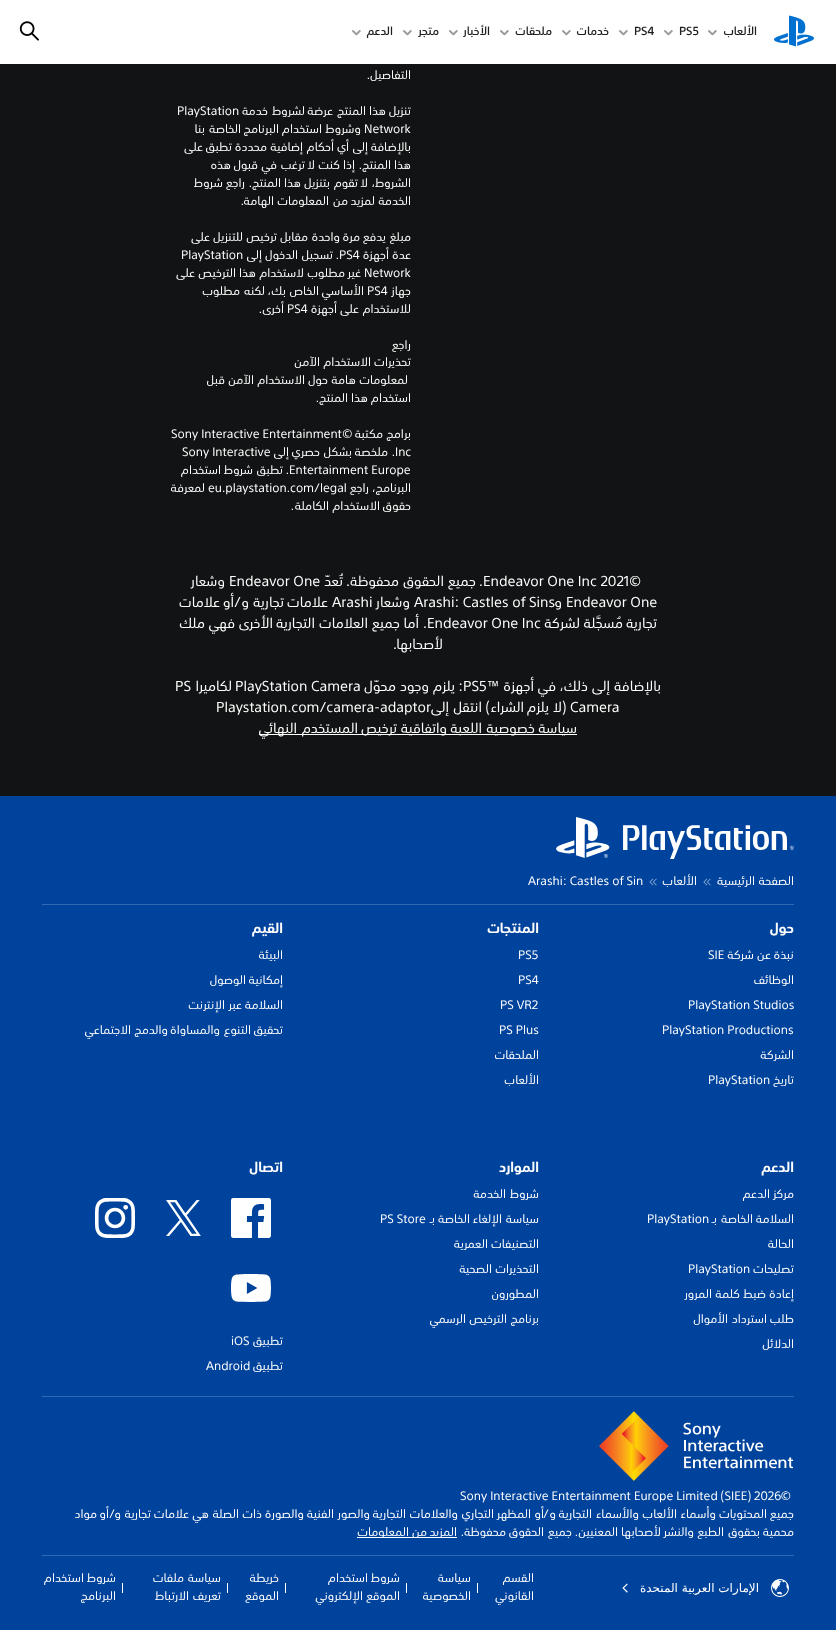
<svg xmlns="http://www.w3.org/2000/svg" width="836" height="1630">
<style>
.a{font:500 11.5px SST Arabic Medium;direction:rtl;fill:#1f1f1f}
.b{font:500 11.5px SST;fill:#1f1f1f}
.c{font:12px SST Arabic;direction:rtl;fill:#fff}
.d{font:12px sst;direction:rtl;fill:#fff}
.e{font:12px sst;fill:#fff}
.f{font:14px sst;fill:#fff}
.g{font:14px sst;direction:rtl;fill:#fff}
.h{font:14px SST Arabic;direction:rtl;fill:#fff}
.i{font:bold 14px SST Arabic;direction:rtl;fill:#fff}
.j{font:12px DejaVu Sans;direction:rtl;fill:#fff}
</style>
<rect width="100%" height="100%" fill="#00439c"/>
<path fill="#fff" d="M0 0h836v64H0z"/>
<image href="1.png" x="774" y="15" width="40" height="32"/>
<image href="2.png" x="708" y="30" width="9" height="6"/>
<image href="2.png" x="664" y="30" width="9" height="6"/>
<image href="2.png" x="619" y="30" width="9" height="6"/>
<image href="2.png" x="562" y="30" width="9" height="6"/>
<image href="2.png" x="500" y="30" width="9" height="6"/>
<image href="2.png" x="449" y="30" width="9" height="6"/>
<image href="2.png" x="403" y="30" width="9" height="6"/>
<image href="2.png" x="352" y="30" width="9" height="6"/>
<image href="3.png" x="19" y="21" width="20" height="20"/>
<path fill="#121314" d="M0 64h836v732H0z"/>
<path fill="#fff" d="M259 734h318v1H259z"/>
<image href="4.png" x="556" y="817" width="238" height="42"/>
<image href="5.png" x="703" y="878" width="8" height="8"/>
<image href="5.png" x="649" y="878" width="8" height="8"/>
<path fill="#3369b0" d="M42 904h752v1H42z"/>
<image href="6.png" x="231" y="1198" width="40" height="40"/>
<image href="7.png" x="166" y="1200" width="35" height="36"/>
<image href="8.png" x="95" y="1198" width="40" height="40"/>
<image href="9.png" x="231" y="1274" width="40" height="28"/>
<path fill="#3369b0" d="M42 1396h752v1H42z"/>
<image href="10.png" x="599" y="1411" width="195" height="70"/>
<path fill="#fff" d="M357 1537h100v1H357z"/>
<path fill="#3369b0" d="M42 1555h752v1H42z"/>
<image href="11.png" x="771" y="1579" width="18" height="18"/>
<image href="12.png" x="622" y="1583" width="6" height="10"/>
<path fill="#fff" d="M477 1583h1v10H477z"/>
<path fill="#fff" d="M406 1583h1v10H406z"/>
<path fill="#fff" d="M285 1583h1v10H285z"/>
<path fill="#fff" d="M227 1583h1v10H227z"/>
<path fill="#fff" d="M122 1583h1v10H122z"/>
<text class="a" x="757" y="35">الألعاب</text>
<text class="b" x="679" y="35">PS5</text>
<text class="b" x="634" y="35">PS4</text>
<text class="a" x="609" y="35">خدمات</text>
<text class="a" x="552" y="35">ملحقات</text>
<text class="a" x="490" y="35">الأخبار</text>
<text class="a" x="439" y="35">متجر</text>
<text class="a" x="393" y="35">الدعم</text>
<text class="c" x="411" y="79">التفاصيل</text>
<text class="d" x="370" y="79">.</text>
<text class="c" x="411" y="115">تنزيل</text>
<text class="c" x="386" y="115">هذا</text>
<text class="c" x="366" y="115">المنتج</text>
<text class="c" x="333" y="115">عرضة</text>
<text class="c" x="305" y="115">لشروط</text>
<text class="c" x="268" y="115">خدمة</text>
<text class="e" x="177" y="115">PlayStation</text>
<text class="e" x="364" y="133">Network</text>
<text class="c" x="361" y="133">وشروط</text>
<text class="c" x="322" y="133">استخدام</text>
<text class="c" x="279" y="133">البرنامج</text>
<text class="c" x="241" y="133">الخاصة</text>
<text class="c" x="205" y="133">بنا</text>
<text class="c" x="411" y="151">بالإضافة</text>
<text class="c" x="368" y="151">إلى</text>
<text class="c" x="349" y="151">أي</text>
<text class="c" x="334" y="151">أحكام</text>
<text class="c" x="303" y="151">إضافية</text>
<text class="c" x="267" y="151">محددة</text>
<text class="c" x="232" y="151">تطبق</text>
<text class="c" x="203" y="151">على</text>
<text class="c" x="411" y="169">هذا</text>
<text class="c" x="391" y="169">المنتج</text>
<text class="d" x="362" y="169">.</text>
<text class="c" x="355" y="169">إذا</text>
<text class="c" x="340" y="169">كنت</text>
<text class="c" x="315" y="169">لا</text>
<text class="c" x="305" y="169">ترغب</text>
<text class="c" x="277" y="169">في</text>
<text class="c" x="258" y="169">قبول</text>
<text class="c" x="231" y="169">هذه</text>
<text class="c" x="411" y="187">الشروط،</text>
<text class="c" x="368" y="187">لا</text>
<text class="c" x="358" y="187">تقوم</text>
<text class="c" x="330" y="187">بتنزيل</text>
<text class="c" x="301" y="187">هذا</text>
<text class="c" x="281" y="187">المنتج</text>
<text class="d" x="252" y="187">.</text>
<text class="c" x="245" y="187">راجع</text>
<text class="c" x="223" y="187">شروط</text>
<text class="c" x="411" y="205">الخدمة</text>
<text class="c" x="375" y="205">لمزيد</text>
<text class="c" x="348" y="205">من</text>
<text class="c" x="329" y="205">المعلومات</text>
<text class="c" x="274" y="205">الهامة</text>
<text class="d" x="244" y="205">.</text>
<text class="c" x="411" y="241">مبلغ</text>
<text class="c" x="386" y="241">يدفع</text>
<text class="c" x="360" y="241">مرة</text>
<text class="c" x="340" y="241">واحدة</text>
<text class="c" x="308" y="241">مقابل</text>
<text class="c" x="277" y="241">ترخيص</text>
<text class="c" x="243" y="241">للتنزيل</text>
<text class="c" x="210" y="241">على</text>
<text class="c" x="411" y="259">عدة</text>
<text class="c" x="389" y="259">أجهزة</text>
<text class="e" x="339" y="259">PS4</text>
<text class="d" x="339" y="259">.</text>
<text class="c" x="333" y="259">تسجيل</text>
<text class="c" x="298" y="259">الدخول</text>
<text class="c" x="262" y="259">إلى</text>
<text class="e" x="181" y="259">PlayStation</text>
<text class="e" x="364" y="277">Network</text>
<text class="c" x="361" y="277">غير</text>
<text class="c" x="345" y="277">مطلوب</text>
<text class="c" x="304" y="277">لاستخدام</text>
<text class="c" x="256" y="277">هذا</text>
<text class="c" x="236" y="277">الترخيص</text>
<text class="c" x="195" y="277">على</text>
<text class="c" x="411" y="295">جهاز</text>
<text class="e" x="367" y="295">PS4</text>
<text class="c" x="364" y="295">الأساسي</text>
<text class="c" x="319" y="295">الخاص</text>
<text class="c" x="286" y="295">بك،</text>
<text class="c" x="265" y="295">لكنه</text>
<text class="c" x="240" y="295">مطلوب</text>
<text class="c" x="411" y="313">للاستخدام</text>
<text class="c" x="359" y="313">على</text>
<text class="c" x="337" y="313">أجهزة</text>
<text class="e" x="287" y="313">PS4</text>
<text class="c" x="284" y="313">أخرى</text>
<text class="d" x="262" y="313">.</text>
<text class="c" x="411" y="349">راجع</text>
<text class="c" x="411" y="366">تحذيرات</text>
<text class="c" x="371" y="366">الاستخدام</text>
<text class="c" x="320" y="366">الآمن</text>
<text class="c" x="408" y="384">لمعلومات</text>
<text class="c" x="356" y="384">هامة</text>
<text class="c" x="328" y="384">حول</text>
<text class="c" x="305" y="384">الاستخدام</text>
<text class="c" x="254" y="384">الآمن</text>
<text class="c" x="225" y="384">قبل</text>
<text class="c" x="411" y="402">استخدام</text>
<text class="c" x="368" y="402">هذا</text>
<text class="c" x="348" y="402">المنتج</text>
<text class="d" x="319" y="402">.</text>
<text class="c" x="411" y="438">برامج</text>
<text class="c" x="383" y="438">مكتبة</text>
<text class="d" x="352" y="438">©</text>
<text class="e" x="171" y="438">Sony Interactive Entertainment</text>
<text class="e" x="395" y="456">Inc</text>
<text class="d" x="395" y="456">.</text>
<text class="c" x="388" y="456">ملخصة</text>
<text class="c" x="352" y="456">بشكل</text>
<text class="c" x="320" y="456">حصري</text>
<text class="c" x="289" y="456">إلى</text>
<text class="e" x="182" y="456">Sony Interactive</text>
<text class="e" x="289" y="474">Entertainment Europe</text>
<text class="d" x="289" y="474">.</text>
<text class="c" x="283" y="474">تطبق</text>
<text class="c" x="253" y="474">شروط</text>
<text class="c" x="221" y="474">استخدام</text>
<text class="c" x="411" y="492">البرنامج،</text>
<text class="c" x="369" y="492">راجع</text>
<text class="e" x="208" y="492">eu.playstation.com/legal</text>
<text class="c" x="205" y="492">لمعرفة</text>
<text class="c" x="411" y="510">حقوق</text>
<text class="c" x="380" y="510">الاستخدام</text>
<text class="c" x="329" y="510">الكاملة</text>
<text class="d" x="294" y="510">.</text>
<text class="f" x="483" y="586">Endeavor One Inc 2021©</text>
<text class="g" x="483" y="586">.</text>
<text class="h" x="476" y="586">جميع</text>
<text class="h" x="444" y="586">الحقوق</text>
<text class="h" x="399" y="586">محفوظة</text>
<text class="g" x="350" y="586">.</text>
<text class="h" x="343" y="586">تُعدّ</text>
<text class="f" x="229" y="586">Endeavor One</text>
<text class="h" x="225" y="586">وشعار</text>
<text class="f" x="566" y="607">Endeavor One</text>
<text class="h" x="562" y="607">و</text>
<text class="f" x="414" y="607">Arashi: Castles of Sins</text>
<text class="h" x="410" y="607">وشعار</text>
<text class="f" x="332" y="607">Arashi</text>
<text class="h" x="328" y="607">علامات</text>
<text class="h" x="284" y="607">تجارية</text>
<text class="h" x="249" y="607">و</text>
<text class="g" x="241" y="607">/</text>
<text class="h" x="234" y="607">أو</text>
<text class="h" x="220" y="607">علامات</text>
<text class="h" x="657" y="628">تجارية</text>
<text class="h" x="623" y="628">مُسجَّلة</text>
<text class="h" x="580" y="628">لشركة</text>
<text class="f" x="427" y="628">Endeavor One Inc</text>
<text class="g" x="427" y="628">.</text>
<text class="h" x="419" y="628">أما</text>
<text class="h" x="400" y="628">جميع</text>
<text class="h" x="368" y="628">العلامات</text>
<text class="h" x="315" y="628">التجارية</text>
<text class="h" x="273" y="628">الأخرى</text>
<text class="h" x="235" y="628">فهي</text>
<text class="h" x="205" y="628">ملك</text>
<text class="h" x="443" y="649">لأصحابها</text>
<text class="g" x="397" y="649">.</text>
<text class="h" x="661" y="691">بالإضافة</text>
<text class="h" x="610" y="691">إلى</text>
<text class="h" x="588" y="691">ذلك،</text>
<text class="h" x="556" y="691">في</text>
<text class="h" x="534" y="691">أجهزة</text>
<text class="f" x="463" y="691">PS5™</text>
<text class="g" x="463" y="691">:</text>
<text class="h" x="455" y="691">يلزم</text>
<text class="h" x="429" y="691">وجود</text>
<text class="h" x="396" y="691">محوّل</text>
<text class="f" x="235" y="691">PlayStation Camera</text>
<text class="h" x="232" y="691">لكاميرا</text>
<text class="f" x="175" y="691">PS</text>
<text class="f" x="570" y="712">Camera</text>
<text class="g" x="566" y="712">(</text>
<text class="h" x="562" y="712">لا</text>
<text class="h" x="549" y="712">يلزم</text>
<text class="h" x="524" y="712">الشراء</text>
<text class="g" x="490" y="712">)</text>
<text class="h" x="482" y="712">انتقل</text>
<text class="f" x="216" y="712">Playstation.com/camera-adaptor</text>
<text class="h" x="449" y="712">إلى</text>
<text class="h" x="577" y="733">سياسة</text>
<text class="h" x="535" y="733">خصوصية</text>
<text class="h" x="482" y="733">اللعبة</text>
<text class="h" x="447" y="733">واتفاقية</text>
<text class="h" x="397" y="733">ترخيص</text>
<text class="h" x="358" y="733">المستخدم</text>
<text class="h" x="297" y="733">النهائي</text>
<text class="c" x="794" y="885">الصفحة</text>
<text class="c" x="755" y="885">الرئيسية</text>
<text class="c" x="697" y="885">الألعاب</text>
<text class="e" x="528" y="885">Arashi: Castles of Sin</text>
<text class="i" x="794" y="933">حول</text>
<text class="c" x="794" y="959">نبذة</text>
<text class="c" x="771" y="959">عن</text>
<text class="c" x="754" y="959">شركة</text>
<text class="e" x="708" y="959">SIE</text>
<text class="c" x="794" y="984">الوظائف</text>
<text class="e" x="688" y="1009">PlayStation Studios</text>
<text class="e" x="662" y="1034">PlayStation Productions</text>
<text class="c" x="794" y="1059">الشركة</text>
<text class="c" x="794" y="1084">تاريخ</text>
<text class="e" x="708" y="1084">PlayStation</text>
<text class="i" x="539" y="933">المنتجات</text>
<text class="e" x="518" y="959">PS5</text>
<text class="e" x="518" y="984">PS4</text>
<text class="e" x="500" y="1009">PS VR2</text>
<text class="e" x="499" y="1034">PS Plus</text>
<text class="c" x="539" y="1059">الملحقات</text>
<text class="c" x="539" y="1084">الألعاب</text>
<text class="i" x="283" y="933">القيم</text>
<text class="c" x="283" y="959">البيئة</text>
<text class="c" x="283" y="984">إمكانية</text>
<text class="c" x="246" y="984">الوصول</text>
<text class="c" x="283" y="1009">السلامة</text>
<text class="c" x="242" y="1009">عبر</text>
<text class="c" x="225" y="1009">الإنترنت</text>
<text class="c" x="283" y="1034">تحقيق</text>
<text class="c" x="251" y="1034">التنوع</text>
<text class="c" x="220" y="1034">والمساواة</text>
<text class="c" x="168" y="1034">والدمج</text>
<text class="c" x="131" y="1034">الاجتماعي</text>
<text class="i" x="794" y="1172">الدعم</text>
<text class="c" x="794" y="1198">مركز</text>
<text class="c" x="770" y="1198">الدعم</text>
<text class="c" x="794" y="1223">السلامة</text>
<text class="c" x="753" y="1223">الخاصة</text>
<text class="c" x="717" y="1223">بـ</text>
<text class="e" x="647" y="1223">PlayStation</text>
<text class="c" x="794" y="1248">الحالة</text>
<text class="c" x="794" y="1273">تصليحات</text>
<text class="e" x="688" y="1273">PlayStation</text>
<text class="c" x="794" y="1298">إعادة</text>
<text class="c" x="766" y="1298">ضبط</text>
<text class="c" x="740" y="1298">كلمة</text>
<text class="c" x="712" y="1298">المرور</text>
<text class="c" x="794" y="1323">طلب</text>
<text class="c" x="767" y="1323">استرداد</text>
<text class="c" x="728" y="1323">الأموال</text>
<text class="c" x="794" y="1348">الدلائل</text>
<text class="i" x="539" y="1172">الموارد</text>
<text class="c" x="539" y="1198">شروط</text>
<text class="c" x="506" y="1198">الخدمة</text>
<text class="c" x="539" y="1223">سياسة</text>
<text class="c" x="502" y="1223">الإلغاء</text>
<text class="c" x="470" y="1223">الخاصة</text>
<text class="c" x="435" y="1223">بـ</text>
<text class="e" x="380" y="1223">PS Store</text>
<text class="c" x="539" y="1248">التصنيفات</text>
<text class="c" x="488" y="1248">العمرية</text>
<text class="c" x="539" y="1273">التحذيرات</text>
<text class="c" x="492" y="1273">الصحية</text>
<text class="c" x="539" y="1298">المطورون</text>
<text class="c" x="539" y="1323">برنامج</text>
<text class="c" x="507" y="1323">الترخيص</text>
<text class="c" x="466" y="1323">الرسمي</text>
<text class="i" x="283" y="1172">اتصال</text>
<text class="c" x="283" y="1345">تطبيق</text>
<text class="e" x="231" y="1345">iOS</text>
<text class="c" x="283" y="1370">تطبيق</text>
<text class="e" x="206" y="1370">Android</text>
<text class="e" x="460" y="1500">Sony Interactive Entertainment Europe Limited (SIEE) 2026©</text>
<text class="c" x="794" y="1518">جميع</text>
<text class="c" x="767" y="1518">المحتويات</text>
<text class="c" x="716" y="1518">وأسماء</text>
<text class="c" x="677" y="1518">الألعاب</text>
<text class="c" x="639" y="1518">والأسماء</text>
<text class="c" x="592" y="1518">التجارية</text>
<text class="c" x="556" y="1518">و</text>
<text class="c" x="544" y="1518">أو</text>
<text class="d" x="549" y="1518">/</text>
<text class="c" x="531" y="1518">المظهر</text>
<text class="c" x="494" y="1518">التجاري</text>
<text class="c" x="458" y="1518">والعلامات</text>
<text class="c" x="406" y="1518">التجارية</text>
<text class="c" x="370" y="1518">والصور</text>
<text class="c" x="334" y="1518">الفنية</text>
<text class="c" x="304" y="1518">والصورة</text>
<text class="c" x="262" y="1518">ذات</text>
<text class="c" x="239" y="1518">الصلة</text>
<text class="c" x="209" y="1518">هي</text>
<text class="c" x="189" y="1518">علامات</text>
<text class="c" x="151" y="1518">تجارية</text>
<text class="c" x="121" y="1518">و</text>
<text class="d" x="115" y="1518">/</text>
<text class="c" x="109" y="1518">أو</text>
<text class="c" x="97" y="1518">مواد</text>
<text class="c" x="794" y="1536">محمية</text>
<text class="c" x="760" y="1536">بحقوق</text>
<text class="c" x="724" y="1536">الطبع</text>
<text class="c" x="694" y="1536">والنشر</text>
<text class="c" x="661" y="1536">لأصحابها</text>
<text class="c" x="618" y="1536">المعنيين</text>
<text class="d" x="578" y="1536">.</text>
<text class="c" x="572" y="1536">جميع</text>
<text class="c" x="544" y="1536">الحقوق</text>
<text class="c" x="506" y="1536">محفوظة</text>
<text class="d" x="464" y="1536">.</text>
<text class="c" x="457" y="1536">المزيد</text>
<text class="c" x="427" y="1536">من</text>
<text class="c" x="409" y="1536">المعلومات</text>
<text class="j" x="759" y="1592">الإمارات العربية المتحدة</text>
<text class="c" x="534" y="1582">القسم</text>
<text class="c" x="534" y="1600">القانوني</text>
<text class="c" x="471" y="1582">سياسة</text>
<text class="c" x="471" y="1600">الخصوصية</text>
<text class="c" x="400" y="1582">شروط</text>
<text class="c" x="368" y="1582">استخدام</text>
<text class="c" x="400" y="1600">الموقع</text>
<text class="c" x="363" y="1600">الإلكتروني</text>
<text class="c" x="279" y="1582">خريطة</text>
<text class="c" x="279" y="1600">الموقع</text>
<text class="c" x="221" y="1582">سياسة</text>
<text class="c" x="184" y="1582">ملفات</text>
<text class="c" x="221" y="1600">تعريف</text>
<text class="c" x="189" y="1600">الارتباط</text>
<text class="c" x="116" y="1582">شروط</text>
<text class="c" x="84" y="1582">استخدام</text>
<text class="c" x="116" y="1600">البرنامج</text>
</svg>
